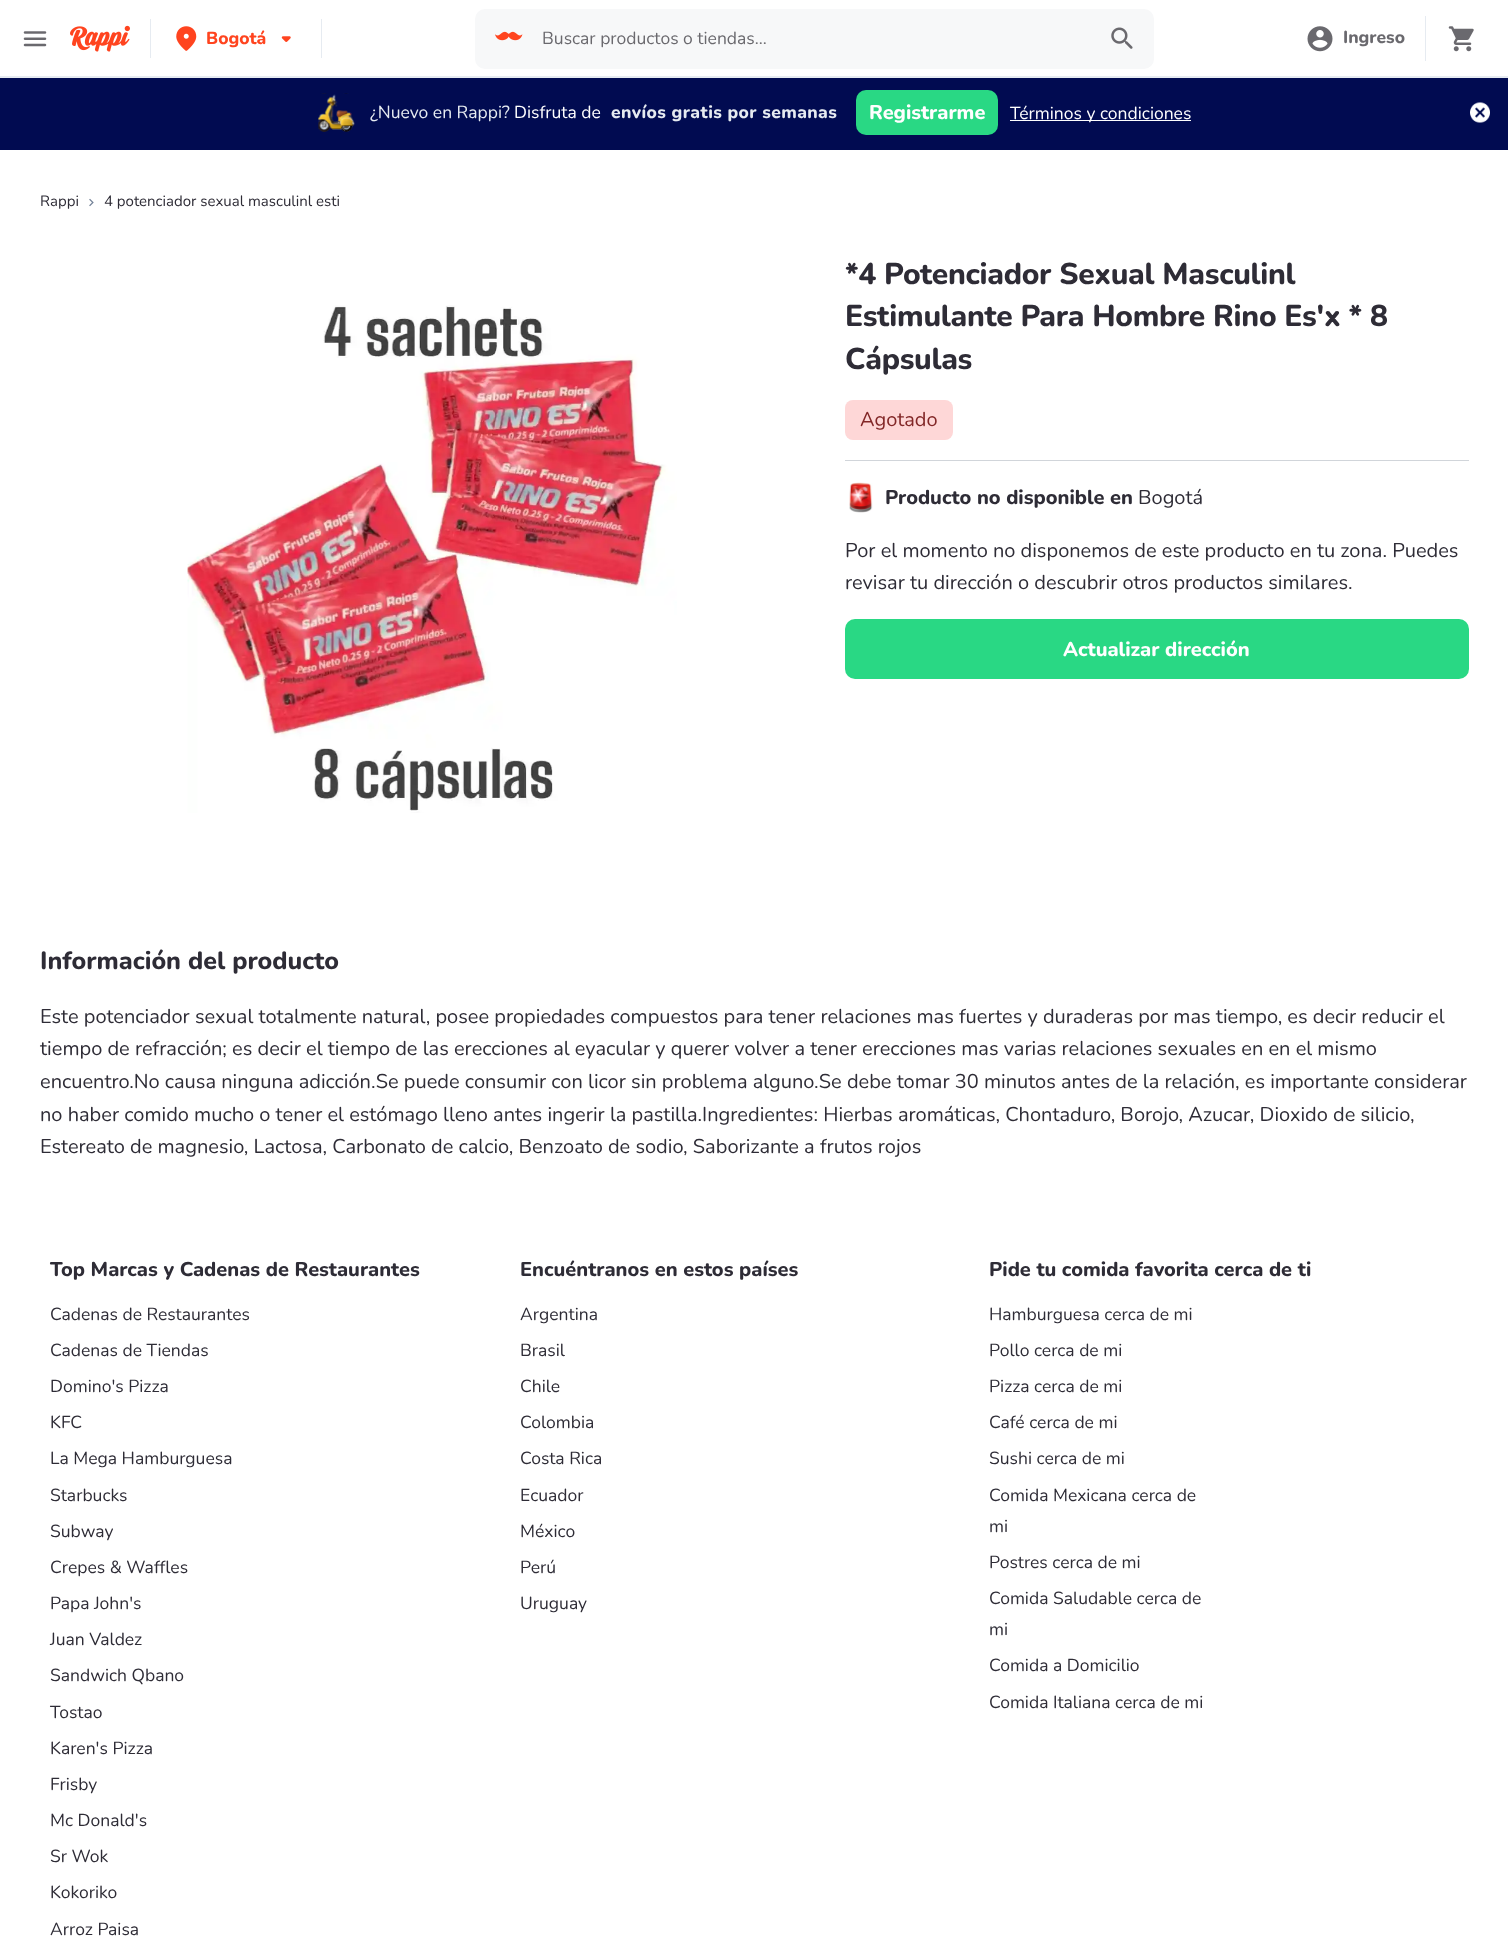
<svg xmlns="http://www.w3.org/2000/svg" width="1508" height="1957">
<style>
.a{font:800 17.5px Nunito;fill:#ff441f}
.b{font:17.5px Nunito;fill:#6a696e}
.c{font:800 17.5px Nunito;fill:#6a696e}
.d{font:17.5px Nunito;fill:#e6ebf1}
.e{font:17.5px Nunito;fill:#fff}
.f{font:800 17.5px Nunito;letter-spacing:0.4px;fill:#e6ebf1}
.g{font:800 20px Nunito;fill:#fff}
.h{font:15px Nunito;fill:#2e2c36}
.i{font:800 30px Nunito;letter-spacing:-0.3px;fill:#2e2c36}
.j{font:20px Nunito;fill:#822727}
.k{font:800 20px Nunito;fill:#2e2c36}
.l{font:20px Nunito;fill:#2e2c36}
.m{font:800 25px Nunito;fill:#2e2c36}
.n{font:17.5px Nunito;fill:#2e2c36}
</style>
<rect width="100%" height="100%" fill="#fff"/>
<path fill="#e6ebf1" d="M0 76v2h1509v-77v75z"/>
<image href="1.png" x="23" y="31" width="24" height="16"/>
<image href="2.png" x="70" y="25" width="60" height="27"/>
<path fill="#e6ebf1" d="M321 19h1v39H321z"/>
<path fill="#e6ebf1" d="M150 19h1v39H150z"/>
<image href="3.png" x="176" y="26" width="21" height="25"/>
<image href="4.png" x="281" y="36" width="10" height="6"/>
<rect fill="#f7f8f9" x="475" y="9" width="679" height="60" rx="10"/>
<image href="5.png" x="495" y="31" width="28" height="10"/>
<image href="6.png" x="1111" y="27" width="22" height="22"/>
<image href="7.png" x="1307" y="26" width="26" height="26"/>
<path fill="#e6ebf1" d="M1425 16h1v45H1425z"/>
<image href="8.png" x="1448" y="26" width="26" height="26"/>
<path fill="#010b51" d="M0 78h1508v72H0z"/>
<image href="9.png" x="318" y="93" width="37" height="39"/>
<rect fill="#29d884" x="856" y="90" width="142" height="45" rx="10"/>
<path fill="#fff" d="M1010 120h181v1H1010z"/>
<image href="10.png" x="1470" y="102" width="20" height="21"/>
<image href="11.png" x="89" y="198" width="5" height="9"/>
<image href="12.png" x="187" y="305" width="490" height="508"/>
<rect fill="#fed7d7" x="845" y="400" width="108" height="40" rx="8"/>
<path fill="#d1d5da" d="M845 460h624v1H845z"/>
<image href="13.png" x="849" y="482" width="24" height="31"/>
<rect fill="#29d884" x="845" y="619" width="624" height="60" rx="10"/>
<text class="a" x="206" y="44">Bogotá</text>
<text class="b" x="542" y="44">Buscar productos o tiendas...</text>
<text class="c" x="1343" y="43">Ingreso</text>
<text class="d" x="370" y="118">¿Nuevo en Rappi?</text>
<text class="e" x="514" y="118">Disfruta de</text>
<text class="f" x="611" y="118">envíos gratis por semanas</text>
<text class="g" x="869" y="119">Registrarme</text>
<text class="e" x="1010" y="119">Términos y condiciones</text>
<text class="h" x="40" y="206">Rappi</text>
<text class="h" x="104" y="206">4 potenciador sexual masculinl esti</text>
<text class="i" x="845" y="284">*4 Potenciador Sexual Masculinl</text>
<text class="i" x="845" y="326">Estimulante Para Hombre Rino Es'x * 8</text>
<text class="i" x="845" y="369">Cápsulas</text>
<text class="j" x="860" y="426">Agotado</text>
<text class="k" x="885" y="504">Producto no disponible en</text>
<text class="l" x="1138" y="504">Bogotá</text>
<text class="l" x="845" y="557">Por el momento no disponemos de este producto en tu zona. Puedes</text>
<text class="l" x="845" y="589">revisar tu dirección o descubrir otros productos similares.</text>
<text class="g" x="1063" y="656">Actualizar dirección</text>
<text class="m" x="40" y="969">Información del producto</text>
<text class="l" x="40" y="1023">Este potenciador sexual totalmente natural, posee propiedades compuestos para tener relaciones mas fuertes y duraderas por mas tiempo, es decir reducir el</text>
<text class="l" x="40" y="1055">tiempo de refracción; es decir el tiempo de las erecciones al eyacular y querer volver a tener erecciones mas varias relaciones sexuales en en el mismo</text>
<text class="l" x="40" y="1088">encuentro.No causa ninguna adicción.Se puede consumir con licor sin problema alguno.Se debe tomar 30 minutos antes de la relación, es importante considerar</text>
<text class="l" x="40" y="1121">no haber comido mucho o tener el estómago lleno antes ingerir la pastilla.Ingredientes: Hierbas aromáticas, Chontaduro, Borojo, Azucar, Dioxido de silicio,</text>
<text class="l" x="40" y="1153">Estereato de magnesio, Lactosa, Carbonato de calcio, Benzoato de sodio, Saborizante a frutos rojos</text>
<text class="k" x="50" y="1276">Top Marcas y Cadenas de Restaurantes</text>
<text class="n" x="50" y="1320">Cadenas de Restaurantes</text>
<text class="n" x="50" y="1356">Cadenas de Tiendas</text>
<text class="n" x="50" y="1392">Domino's Pizza</text>
<text class="n" x="50" y="1428">KFC</text>
<text class="n" x="50" y="1464">La Mega Hamburguesa</text>
<text class="n" x="50" y="1501">Starbucks</text>
<text class="n" x="50" y="1537">Subway</text>
<text class="n" x="50" y="1573">Crepes &amp; Waffles</text>
<text class="n" x="50" y="1609">Papa John's</text>
<text class="n" x="50" y="1645">Juan Valdez</text>
<text class="n" x="50" y="1681">Sandwich Qbano</text>
<text class="n" x="50" y="1718">Tostao</text>
<text class="n" x="50" y="1754">Karen's Pizza</text>
<text class="n" x="50" y="1790">Frisby</text>
<text class="n" x="50" y="1826">Mc Donald's</text>
<text class="n" x="50" y="1862">Sr Wok</text>
<text class="n" x="50" y="1898">Kokoriko</text>
<text class="n" x="50" y="1935">Arroz Paisa</text>
<text class="k" x="520" y="1276">Encuéntranos en estos países</text>
<text class="n" x="520" y="1320">Argentina</text>
<text class="n" x="520" y="1356">Brasil</text>
<text class="n" x="520" y="1392">Chile</text>
<text class="n" x="520" y="1428">Colombia</text>
<text class="n" x="520" y="1464">Costa Rica</text>
<text class="n" x="520" y="1501">Ecuador</text>
<text class="n" x="520" y="1537">México</text>
<text class="n" x="520" y="1573">Perú</text>
<text class="n" x="520" y="1609">Uruguay</text>
<text class="k" x="989" y="1276">Pide tu comida favorita cerca de ti</text>
<text class="n" x="989" y="1320">Hamburguesa cerca de mi</text>
<text class="n" x="989" y="1356">Pollo cerca de mi</text>
<text class="n" x="989" y="1392">Pizza cerca de mi</text>
<text class="n" x="989" y="1428">Café cerca de mi</text>
<text class="n" x="989" y="1464">Sushi cerca de mi</text>
<text class="n" x="989" y="1501">Comida Mexicana cerca de</text>
<text class="n" x="989" y="1532">mi</text>
<text class="n" x="989" y="1568">Postres cerca de mi</text>
<text class="n" x="989" y="1604">Comida Saludable cerca de</text>
<text class="n" x="989" y="1635">mi</text>
<text class="n" x="989" y="1671">Comida a Domicilio</text>
<text class="n" x="989" y="1708">Comida Italiana cerca de mi</text>
</svg>
